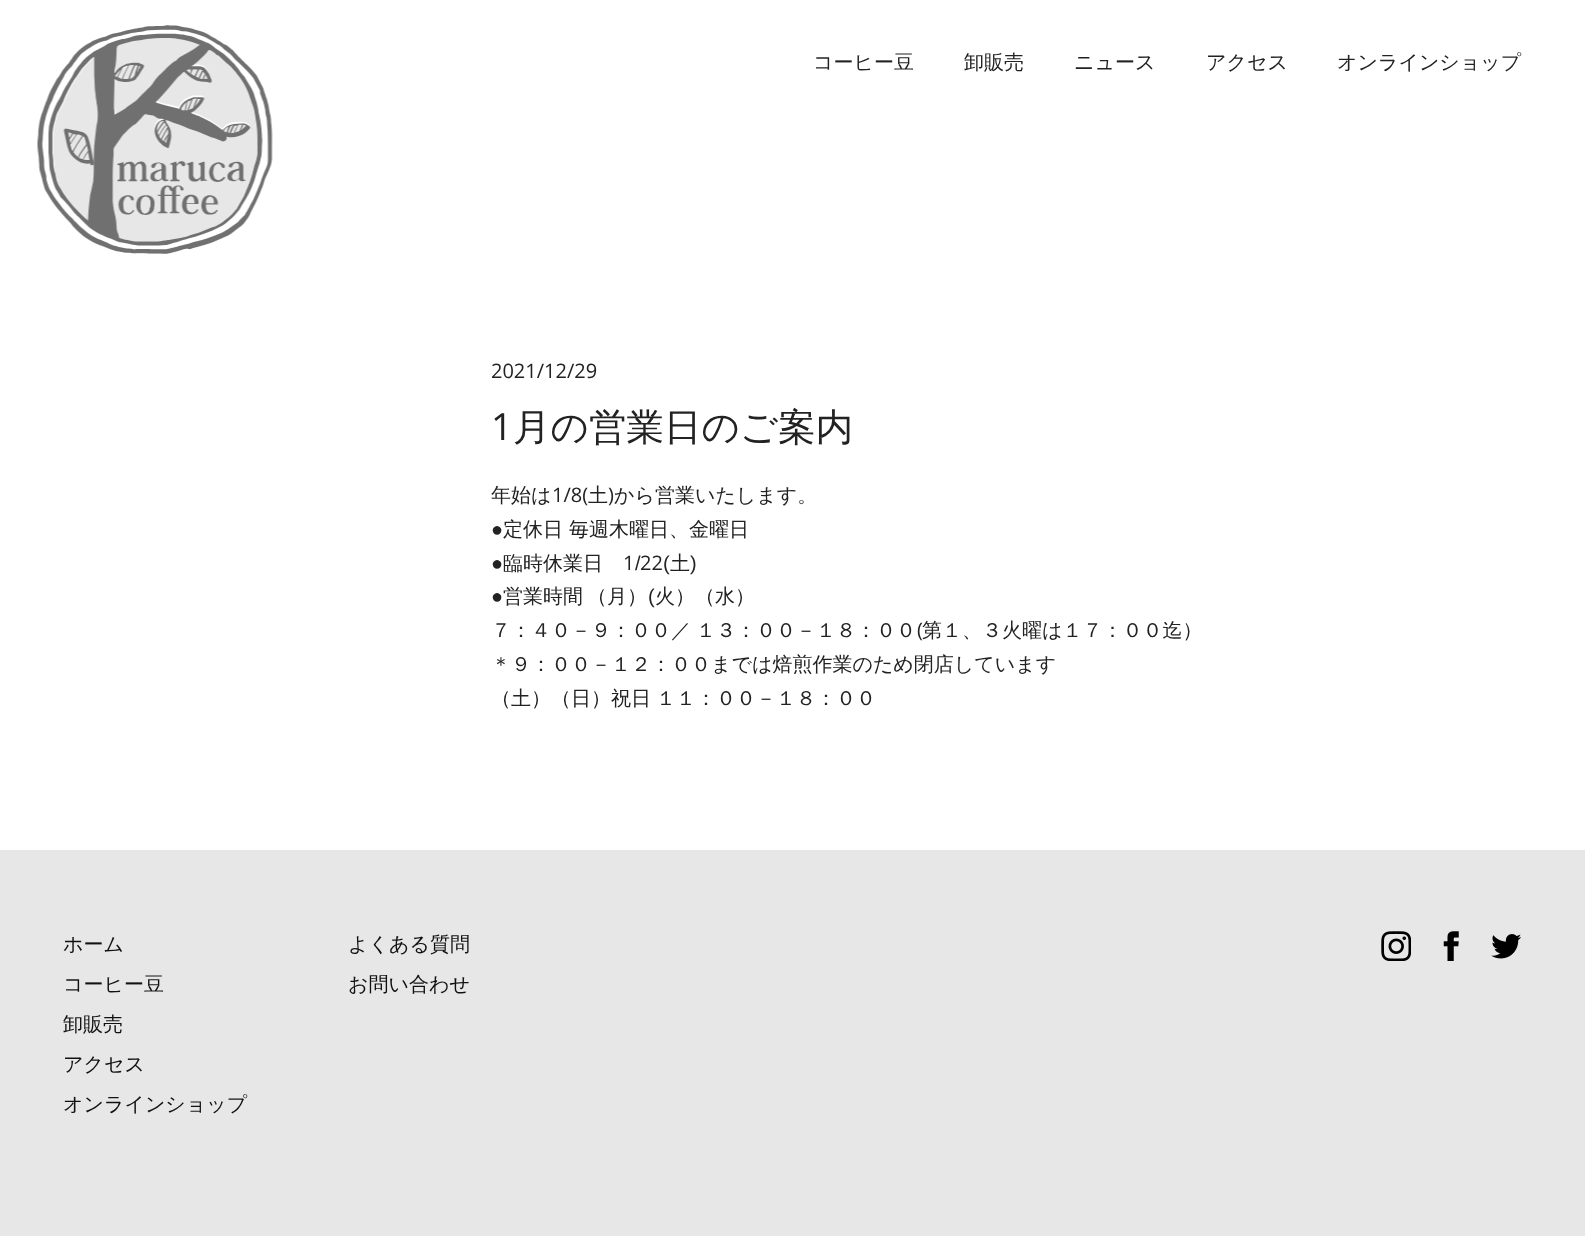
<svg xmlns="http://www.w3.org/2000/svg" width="1585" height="1236">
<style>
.a{font:500 20px WenQuanYi Zen Hei;fill:#222}
.b{font:20px Open Sans;fill:#222}
.c{font:37.5px Open Sans;fill:#222}
.d{font:500 37.5px WenQuanYi Zen Hei;fill:#222}
.e{font:20px Liberation Sans;fill:#222}
.f{font:500 20px WenQuanYi Zen Hei;fill:#111}
</style>
<rect width="100%" height="100%" fill="#fff"/>
<image href="1.png" x="37" y="25" width="236" height="229"/>
<path fill="#e7e7e7" d="M0 850h1585v386H0z"/>
<image href="2.png" x="1381" y="931" width="30" height="30"/>
<image href="3.png" x="1443" y="931" width="16" height="30"/>
<image href="4.png" x="1491" y="934" width="30" height="25"/>
<text class="a" x="813" y="69">コーヒー豆</text>
<text class="a" x="964" y="69">卸販売</text>
<text class="a" x="1074" y="69">ニュース</text>
<text class="a" x="1206" y="69">アクセス</text>
<text class="a" x="1337" y="69">オンラインショップ</text>
<text class="b" x="491" y="378">2021/12/29</text>
<text class="c" x="491" y="440">1</text>
<text class="d" x="513" y="440">月の営業日のご案内</text>
<text class="a" x="491" y="502">年始は</text>
<text class="b" x="552" y="502">1/8(</text>
<text class="a" x="588" y="502">土 から営業いたします。</text>
<text class="b" x="608" y="502">)</text>
<text class="e" x="491" y="536">●</text>
<text class="a" x="503" y="536">定休日 毎週木曜日、金曜日</text>
<text class="e" x="491" y="570">●</text>
<text class="a" x="503" y="570">臨時休業日</text>
<text class="b" x="623" y="570">1</text>
<text class="e" x="635" y="570">/</text>
<text class="b" x="640" y="570">22</text>
<text class="e" x="663" y="570">(</text>
<text class="a" x="670" y="570">土</text>
<text class="e" x="690" y="570">)</text>
<text class="e" x="491" y="603">●</text>
<text class="a" x="503" y="603" word-spacing="-2">営業時間 （月）</text>
<text class="e" x="648" y="603">(</text>
<text class="a" x="655" y="603">火）（水）</text>
<text class="a" x="491" y="637" word-spacing="-1">７：４０－９：００／ １３：００－１８：００</text>
<text class="b" x="917" y="637">(</text>
<text class="a" x="922" y="637">第１、３火曜は１７：００迄）</text>
<text class="a" x="491" y="671">＊９：００－１２：００までは焙煎作業のため閉店しています</text>
<text class="a" x="491" y="705" word-spacing="-1">（土）（日）祝日 １１：００－１８：００</text>
<text class="f" x="63" y="951">ホーム</text>
<text class="f" x="63" y="991">コーヒー豆</text>
<text class="f" x="63" y="1031">卸販売</text>
<text class="f" x="63" y="1071">アクセス</text>
<text class="f" x="63" y="1111">オンラインショップ</text>
<text class="f" x="348" y="951">よくある質問</text>
<text class="f" x="348" y="991">お問い合わせ</text>
</svg>
